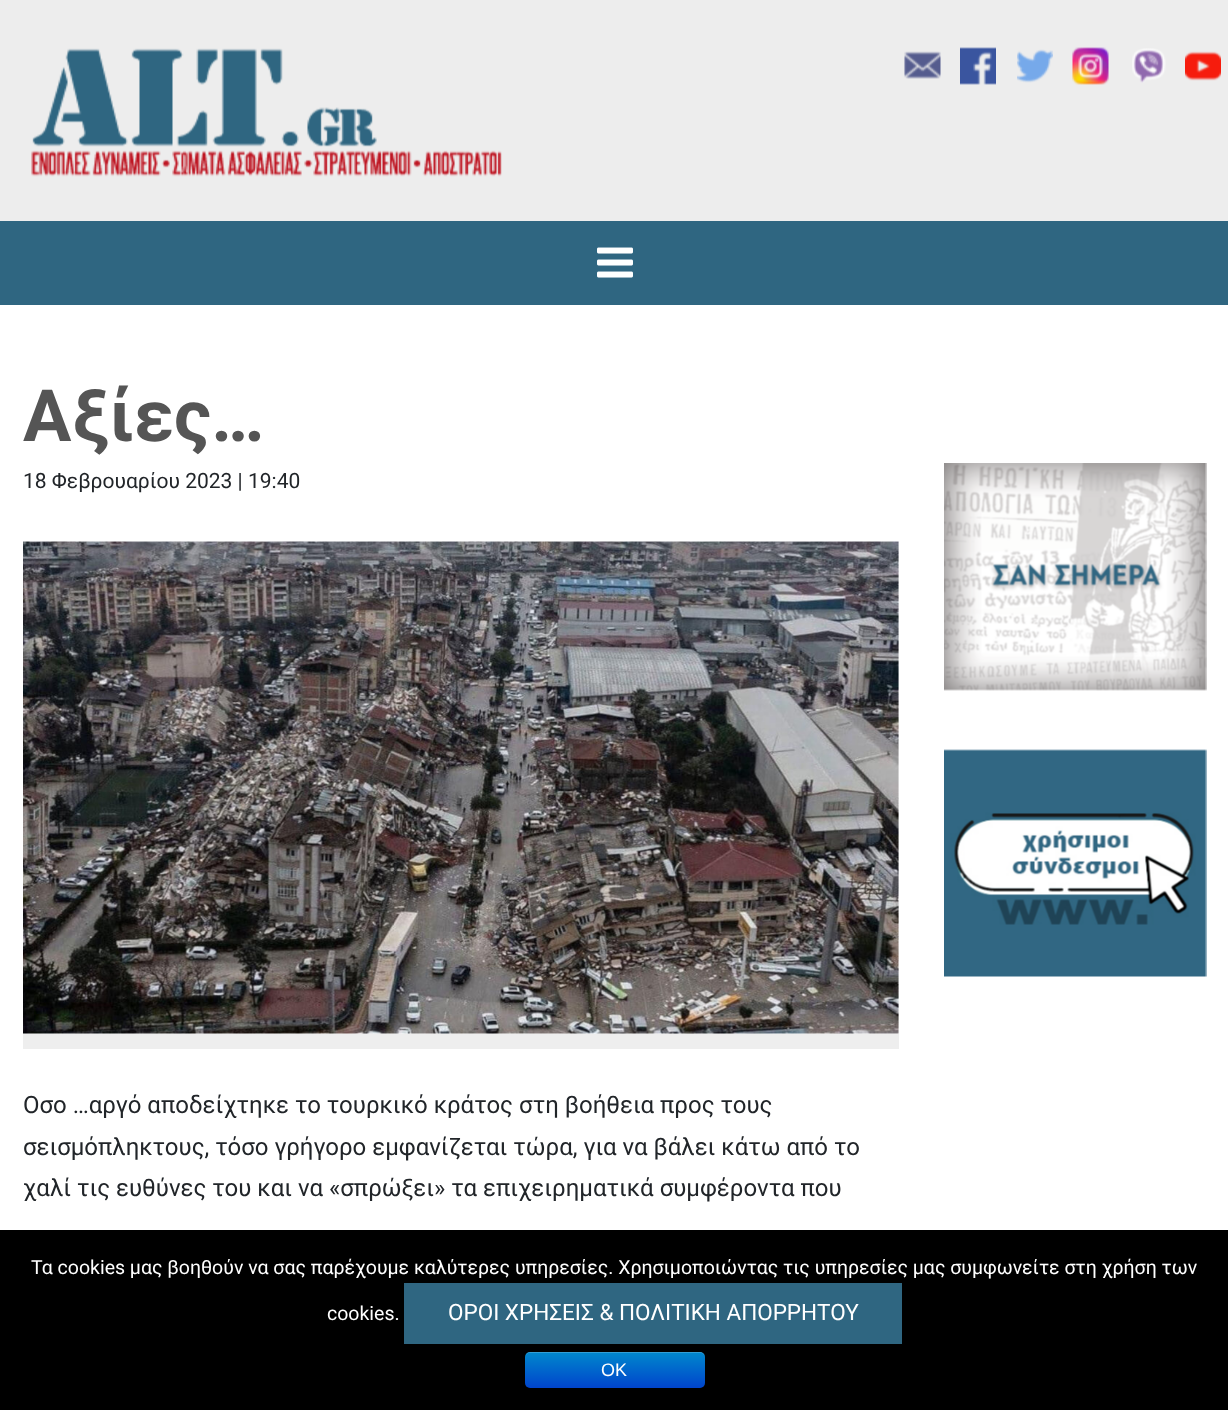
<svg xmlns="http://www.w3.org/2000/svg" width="1228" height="1410">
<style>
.a{font:bold 72px Roboto;fill:#555}
.b{font:21px Roboto;fill:#212529}
.c{font:24px Roboto;fill:#212529}
.d{font:19.5px Roboto;fill:#fff}
.e{font:22.5px Roboto;fill:#fff}
.f{font:18px Liberation Sans;fill:#fff}
</style>
<defs>
<linearGradient id="g1" gradientUnits="userSpaceOnUse" x1="615" y1="1352" x2="615" y2="1388"><stop offset="0" stop-color="#08c"/><stop offset="1" stop-color="#04c"/></linearGradient>
</defs>
<rect width="100%" height="100%" fill="#fff"/>
<path fill="#ededed" d="M0 0h1228v221H0z"/>
<image href="1.png" x="31" y="48" width="471" height="129"/>
<image href="2.png" x="904" y="51" width="37" height="28"/>
<image href="3.png" x="960" y="47" width="36" height="38"/>
<image href="4.png" x="1017" y="49" width="36" height="34"/>
<image href="5.png" x="1072" y="47" width="37" height="38"/>
<image href="6.png" x="1132" y="48" width="34" height="35"/>
<image href="7.png" x="1185" y="51" width="36" height="30"/>
<path fill="#2f6681" d="M0 221h1228v84H0z"/>
<image href="8.png" x="597" y="247" width="36" height="31"/>
<image href="9.png" x="23" y="541" width="876" height="493"/>
<path fill="#eee" d="M23 1034h876v15H23z"/>
<image href="10.png" x="944" y="463" width="263" height="228"/>
<image href="11.png" x="944" y="749" width="263" height="228"/>
<path fill="#000" d="M0 1230h1228v180H0z"/>
<path fill="#2f6681" d="M404 1283h498v61H404z"/>
<rect fill="url(#g1)" x="525" y="1352" width="180" height="36" rx="5"/>
<path fill="#ffffff33" d="M530 1353h170c3 0 5 2 5 5c0-3-1-5-4-6h-171c-3 0-5 3-5 6c0-3 2-5 5-5z"/>
<text class="a" x="23" y="441">Αξίες…</text>
<text class="b" x="23" y="488">18 Φεβρουαρίου 2023 | 19:40</text>
<text class="c" x="23" y="1113">Οσο …αργό αποδείχτηκε το τουρκικό κράτος στη βοήθεια προς τους</text>
<text class="c" x="23" y="1155">σεισμόπληκτους, τόσο γρήγορο εμφανίζεται τώρα, για να βάλει κάτω από το</text>
<text class="c" x="23" y="1196">χαλί τις ευθύνες του και να «σπρώξει» τα επιχειρηματικά συμφέροντα που</text>
<text class="d" x="31" y="1274">Τα cookies μας βοηθούν να σας παρέχουμε καλύτερες υπηρεσίες. Χρησιμοποιώντας τις υπηρεσίες μας συμφωνείτε στη χρήση των</text>
<text class="d" x="327" y="1320">cookies.</text>
<text class="e" x="448" y="1320">ΟΡΟΙ ΧΡΗΣΕΙΣ &amp; ΠΟΛΙΤΙΚΗ ΑΠΟΡΡΗΤΟΥ</text>
<text class="f" x="601" y="1376">ΟΚ</text>
</svg>
